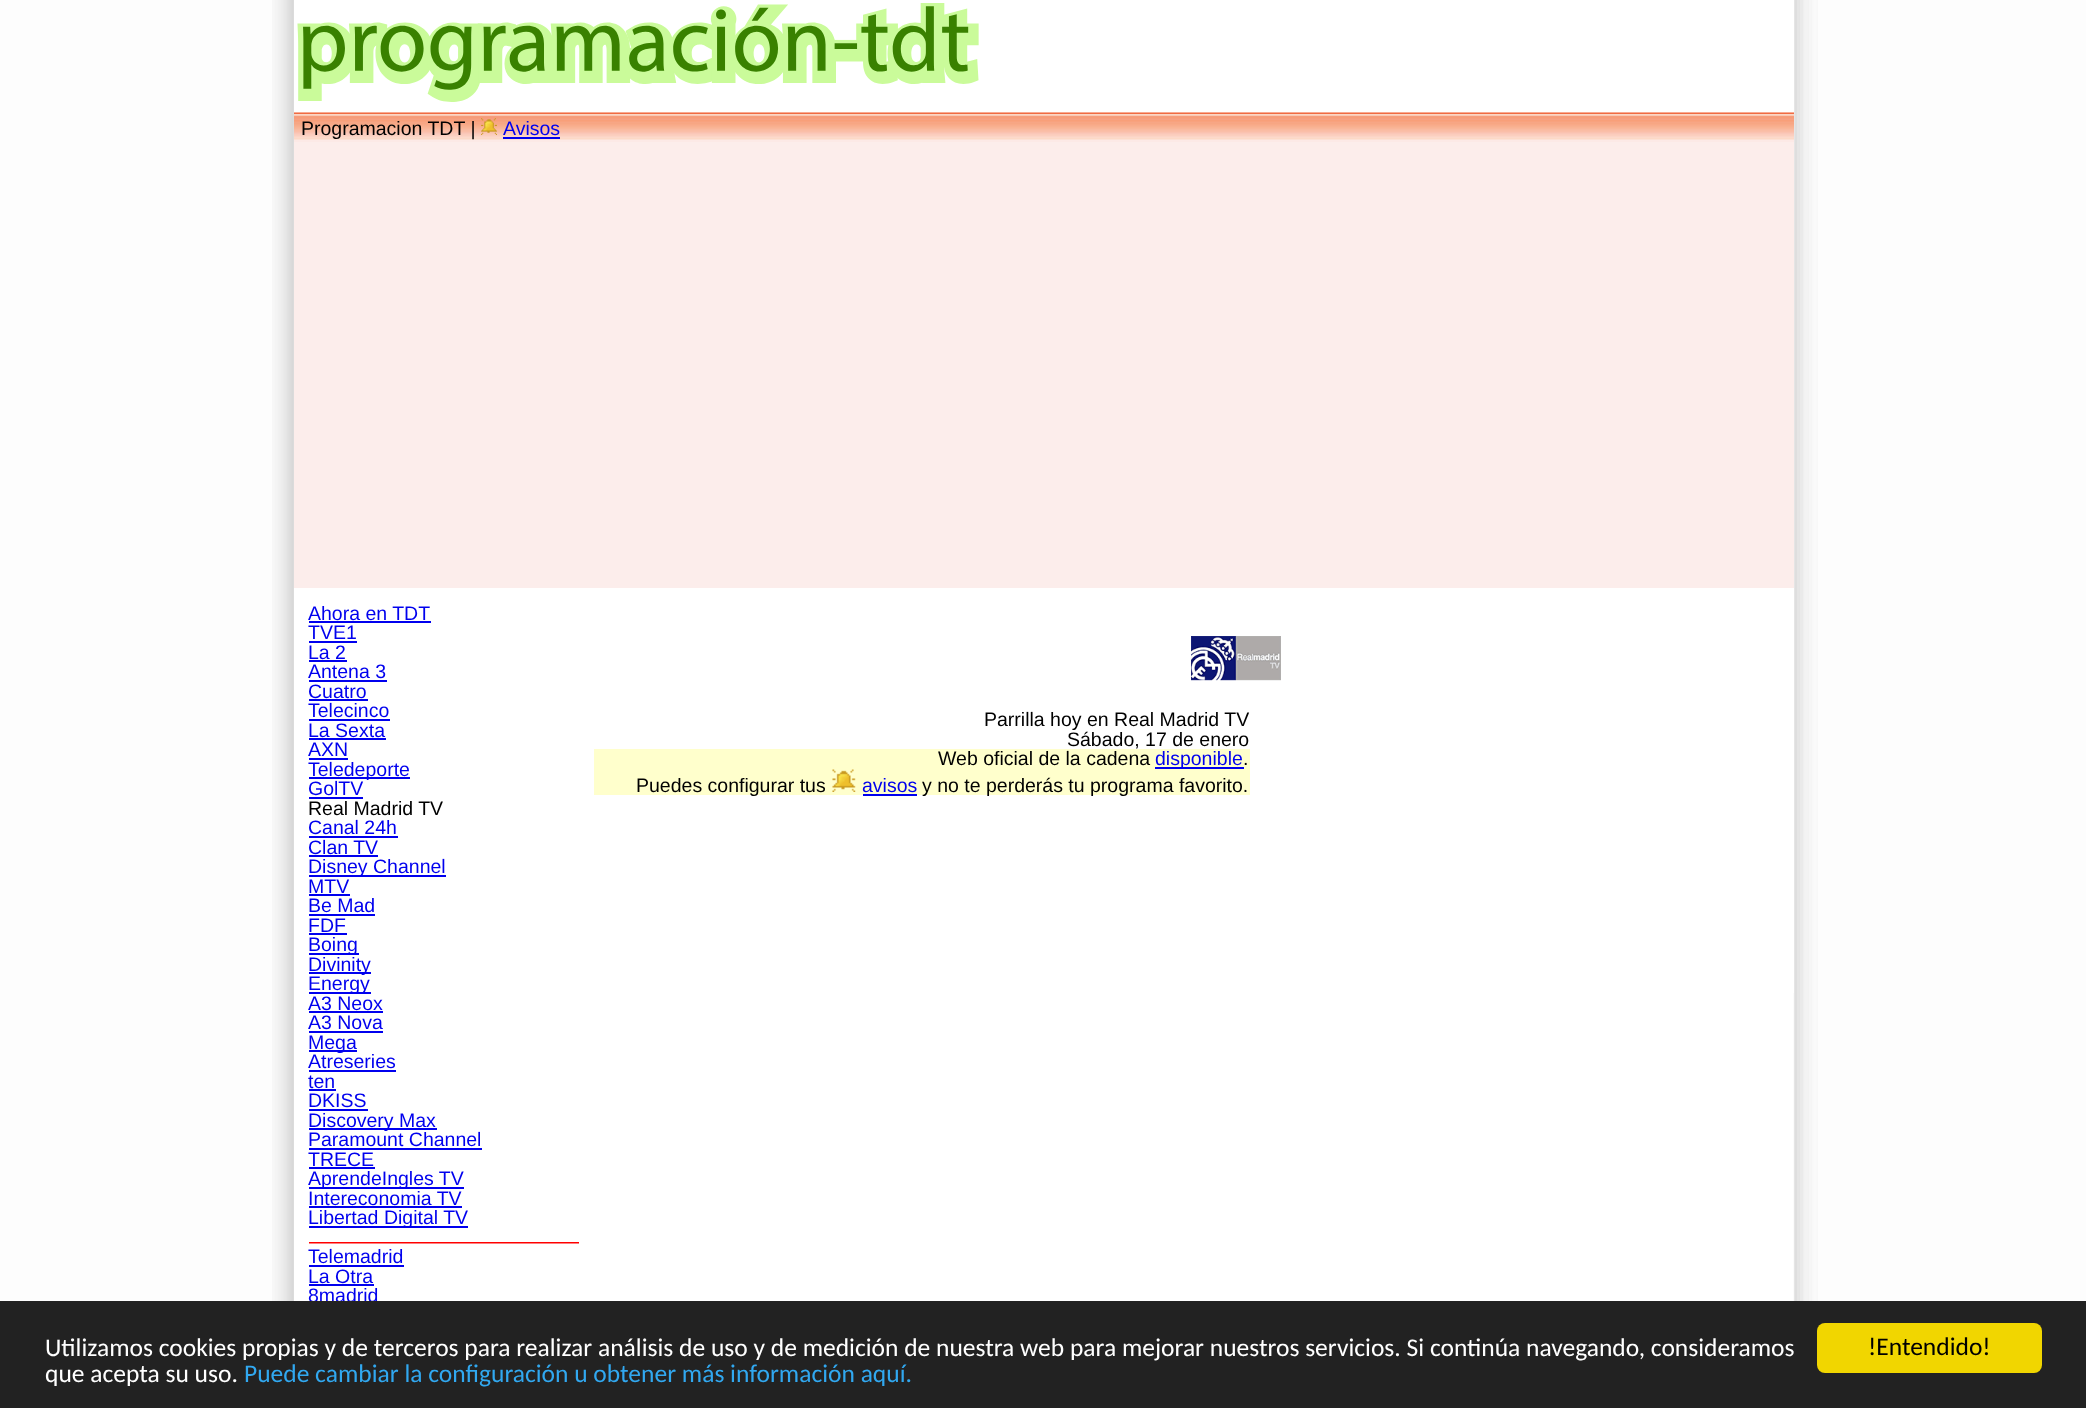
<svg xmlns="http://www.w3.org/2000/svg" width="2086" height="1408">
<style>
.a{font:19.5px Liberation Sans;fill:#000}
.b{font:19.5px Liberation Sans;fill:#00e}
.c{font:25.5px Carlito;fill:#fff}
.d{font:25.5px Carlito;fill:#31a8f0}
.e{font:25.5px Carlito;fill:#000}
</style>
<rect width="100%" height="100%" fill="#fdfdfd"/>
<image href="1.png" x="272" y="0" width="1546" height="1301"/>
<path fill="#fff" d="M294 0h1500v113H294z"/>
<image href="2.png" x="297" y="3" width="682" height="99"/>
<path fill="#fcedeb" d="M294 142h1500v446H294z"/>
<image href="3.png" x="294" y="112" width="1500" height="30"/>
<image href="4.png" x="481" y="118" width="16" height="17"/>
<path fill="#00e" d="M503 137h57v2H503z"/>
<path fill="#fff" d="M294 588h1v713H294z"/>
<path fill="#00e" d="M309 621h122v2H309z"/>
<path fill="#00e" d="M309 641h48v2H309z"/>
<path fill="#00e" d="M309 660h38v2H309z"/>
<path fill="#00e" d="M309 680h78v2H309z"/>
<path fill="#00e" d="M309 699h59v2H309z"/>
<path fill="#00e" d="M309 719h81v2H309z"/>
<path fill="#00e" d="M309 738h77v2H309z"/>
<path fill="#00e" d="M309 758h39v2H309z"/>
<path fill="#00e" d="M309 777h101v2H309z"/>
<path fill="#00e" d="M309 797h54v2H309z"/>
<path fill="#00e" d="M309 836h89v2H309z"/>
<path fill="#00e" d="M309 855h69v2H309z"/>
<path fill="#00e" d="M309 875h137v2H309z"/>
<path fill="#00e" d="M309 894h41v2H309z"/>
<path fill="#00e" d="M309 914h66v2H309z"/>
<path fill="#00e" d="M309 933h38v2H309z"/>
<path fill="#00e" d="M309 953h50v2H309z"/>
<path fill="#00e" d="M309 972h62v2H309z"/>
<path fill="#00e" d="M309 992h62v2H309z"/>
<path fill="#00e" d="M309 1011h74v2H309z"/>
<path fill="#00e" d="M309 1031h74v2H309z"/>
<path fill="#00e" d="M309 1050h48v2H309z"/>
<path fill="#00e" d="M309 1070h87v2H309z"/>
<path fill="#00e" d="M309 1089h27v2H309z"/>
<path fill="#00e" d="M309 1109h59v2H309z"/>
<path fill="#00e" d="M309 1128h128v2H309z"/>
<path fill="#00e" d="M309 1148h173v2H309z"/>
<path fill="#00e" d="M309 1167h66v2H309z"/>
<path fill="#00e" d="M309 1187h155v2H309z"/>
<path fill="#00e" d="M309 1206h153v2H309z"/>
<path fill="#00e" d="M309 1226h159v2H309z"/>
<image href="5.png" x="309" y="1242" width="270" height="2"/>
<path fill="#00e" d="M309 1265h95v2H309z"/>
<path fill="#00e" d="M309 1284h65v2H309z"/>
<image href="6.png" x="1191" y="636" width="90" height="45"/>
<path fill="#ffc" d="M594 749h656v46H594z"/>
<path fill="#00e" d="M1155 767h89v2H1155z"/>
<image href="7.png" x="832" y="769" width="24" height="23"/>
<path fill="#00e" d="M863 794h54v2H863z"/>
<path fill="#fff" d="M1793 588h1v405H1793z"/>
<text class="a" x="301" y="135">Programacion TDT |</text>
<text class="b" x="503" y="135">Avisos</text>
<text class="b" x="308" y="620">Ahora en TDT</text>
<text class="b" x="308" y="639">TVE1</text>
<text class="b" x="308" y="659">La 2</text>
<text class="b" x="308" y="678">Antena 3</text>
<text class="b" x="308" y="698">Cuatro</text>
<text class="b" x="308" y="717">Telecinco</text>
<text class="b" x="308" y="737">La Sexta</text>
<text class="b" x="308" y="756">AXN</text>
<text class="b" x="308" y="776">Teledeporte</text>
<text class="b" x="308" y="795">GolTV</text>
<text class="a" x="308" y="815">Real Madrid TV</text>
<text class="b" x="308" y="834">Canal 24h</text>
<text class="b" x="308" y="854">Clan TV</text>
<text class="b" x="308" y="873">Disney Channel</text>
<text class="b" x="308" y="893">MTV</text>
<text class="b" x="308" y="912">Be Mad</text>
<text class="b" x="308" y="932">FDF</text>
<text class="b" x="308" y="951">Boing</text>
<text class="b" x="308" y="971">Divinity</text>
<text class="b" x="308" y="990">Energy</text>
<text class="b" x="308" y="1010">A3 Neox</text>
<text class="b" x="308" y="1029">A3 Nova</text>
<text class="b" x="308" y="1049">Mega</text>
<text class="b" x="308" y="1068">Atreseries</text>
<text class="b" x="308" y="1088">ten</text>
<text class="b" x="308" y="1107">DKISS</text>
<text class="b" x="308" y="1127">Discovery Max</text>
<text class="b" x="308" y="1146">Paramount Channel</text>
<text class="b" x="308" y="1166">TRECE</text>
<text class="b" x="308" y="1185">AprendeIngles TV</text>
<text class="b" x="308" y="1205">Intereconomia TV</text>
<text class="b" x="308" y="1224">Libertad Digital TV</text>
<text class="b" x="308" y="1263">Telemadrid</text>
<text class="b" x="308" y="1283">La Otra</text>
<text class="b" x="308" y="1302">8madrid</text>
<text class="a" x="984" y="726">Parrilla hoy en Real Madrid TV</text>
<text class="a" x="1067" y="746">Sábado, 17 de enero</text>
<text class="a" x="938" y="765">Web oficial de la cadena</text>
<text class="b" x="1155" y="765">disponible</text>
<text class="a" x="1243" y="765">.</text>
<text class="a" x="636" y="792">Puedes configurar tus</text>
<text class="b" x="862" y="792">avisos</text>
<text class="a" x="922" y="792">y no te perderás tu programa favorito.</text>
<path fill="#222" d="M0 1301h2086v107H0z"/>
<text class="c" x="45" y="1356">Utilizamos cookies propias y de terceros para realizar análisis de uso y de medición de nuestra web para mejorar nuestros servicios. Si continúa navegando, consideramos</text>
<text class="c" x="45" y="1382">que acepta su uso.</text>
<text class="d" x="244" y="1382">Puede cambiar la configuración u obtener más información aquí.</text>
<rect fill="#f1d600" x="1817" y="1323" width="225" height="50" rx="8"/>
<text class="e" x="1868" y="1355">!Entendido!</text>
</svg>
